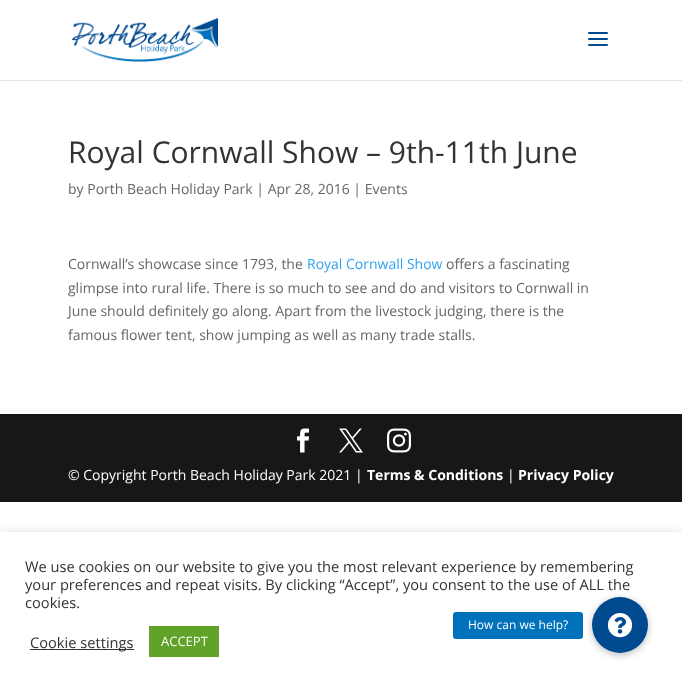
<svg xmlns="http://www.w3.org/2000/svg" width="682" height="687">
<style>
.a{font:30px Open Sans;fill:#333}
.b{font:14px Open Sans;fill:#666}
.c{font:14px Open Sans;fill:#2ea3f2}
.d{font:14px Open Sans;fill:#fff}
.e{font:bold 14px Open Sans;fill:#fff}
.f{font:14.65px Open Sans;fill:#333}
.g{font:13px Open Sans;fill:#fff}
.h{font:12px Open Sans;fill:#fff}
</style>
<defs>
<clipPath id="clip1"><path d="M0 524h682v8H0z"/></clipPath>
</defs>
<rect width="100%" height="100%" fill="#fff"/>
<path fill="#e6e6e6" d="M0 80h682v1H0z"/>
<image href="1.png" x="72" y="18" width="146" height="44"/>
<image href="2.png" x="588" y="32" width="20" height="14"/>
<path fill="#171717" d="M0 414h682v88H0z"/>
<image href="3.png" x="297" y="428" width="13" height="25"/>
<image href="4.png" x="339" y="428" width="24" height="25"/>
<image href="5.png" x="387" y="428" width="24" height="25"/>
<g clip-path="url(#clip1)">
<path fill="#acabab4d" filter="blur(5px)" d="M0 531h682v155H0z"/>
</g>
<path fill="#333" d="M30 649h104v1H30z"/>
<path fill="#61a229" d="M149 626h70v31H149z"/>
<rect fill="#00000033" filter="blur(3px)" x="591" y="598" width="58" height="58" rx="29"/>
<circle fill="#004a8f" cx="620" cy="625" r="28"/>
<rect fill="#0072bc" x="453" y="612" width="130" height="27" rx="3"/>
<image href="6.png" x="607" y="613" width="26" height="25"/>
<text class="a" x="68" y="163">Royal Cornwall Show – 9th-11th June</text>
<text class="b" x="68" y="194">by Porth Beach Holiday Park | Apr 28, 2016 | Events</text>
<text class="b" x="68" y="269">Cornwall’s showcase since 1793, the</text>
<text class="c" x="307" y="269">Royal Cornwall Show</text>
<text class="b" x="446" y="269">offers a fascinating</text>
<text class="b" x="68" y="293">glimpse into rural life. There is so much to see and do and visitors to Cornwall in</text>
<text class="b" x="68" y="316">June should definitely go along. Apart from the livestock judging, there is the</text>
<text class="b" x="68" y="340">famous flower tent, show jumping as well as many trade stalls.</text>
<text class="d" x="68" y="480">© Copyright Porth Beach Holiday Park 2021 |</text>
<text class="e" x="367" y="480">Terms &amp; Conditions</text>
<text class="d" x="507" y="480">|</text>
<text class="e" x="518" y="480">Privacy Policy</text>
<text class="f" x="25" y="572">We use cookies on our website to give you the most relevant experience by remembering</text>
<text class="f" x="25" y="590">your preferences and repeat visits. By clicking “Accept”, you consent to the use of ALL the</text>
<text class="f" x="25" y="608">cookies.</text>
<text class="f" x="30" y="648">Cookie settings</text>
<text class="g" x="161" y="646">ACCEPT</text>
<text class="h" x="468" y="629">How can we help?</text>
</svg>
